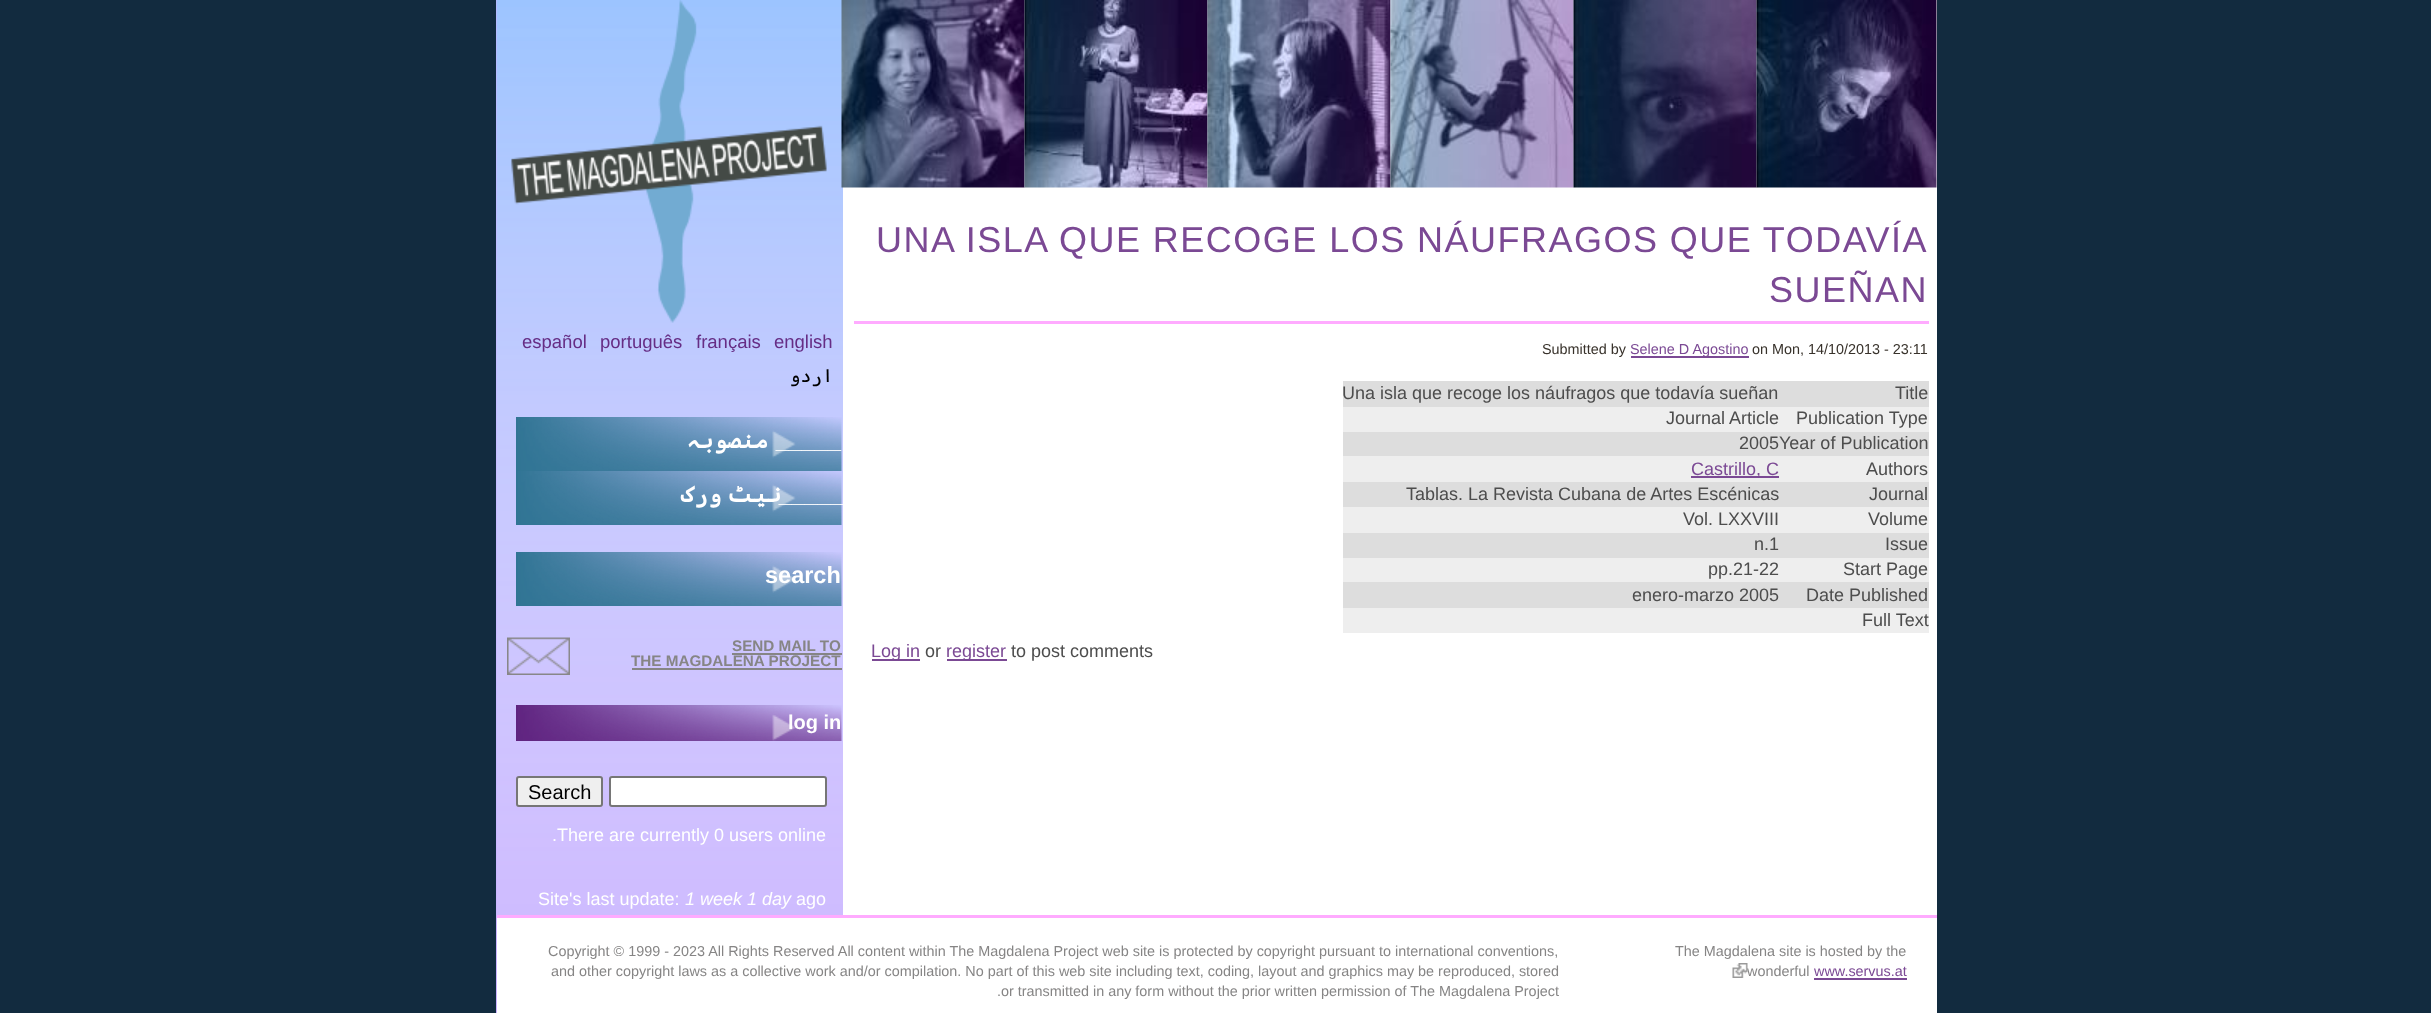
<svg xmlns="http://www.w3.org/2000/svg" width="2431" height="1013">
<style>
.a{font:18.5px Liberation Sans;fill:#662d85}
.b{font:18.5px Cascadia Code;direction:rtl;fill:#000}
.c{font:bold 23.5px Cascadia Code;direction:rtl;fill:#fff}
.d{font:bold 23.5px Liberation Sans;direction:rtl;fill:#fff}
.e{font:bold 23.5px Liberation Sans;fill:#fff}
.f{font:bold 15.25px Liberation Sans;fill:#868585}
.g{font:bold 20px Liberation Sans;fill:#fff}
.h{font:36px Liberation Sans;letter-spacing:1.5px;fill:#7b4994}
.i{font:14.4px Liberation Sans;fill:#38322b}
.j{font:14.4px Liberation Sans;fill:#7b4994}
.k{font:18px Liberation Sans;fill:#4d4d4d}
.l{font:18px Liberation Sans;fill:#7b4994}
.m{font:20px Liberation Sans;fill:#000}
.n{font:18px Liberation Sans;fill:#fff}
.o{font:italic 18px Liberation Sans;fill:#fff}
.p{font:14.4px Liberation Sans;fill:#868585}
</style>
<rect width="100%" height="100%" fill="#122b3f"/>
<path fill="#fff" d="M843 0h1094v915H843z"/>
<path fill="#c8afff" d="M496 0h347v1013H496z"/>
<image href="1.png" x="496" y="0" width="347" height="1013"/>
<image href="2.png" x="511" y="0" width="316" height="323"/>
<image href="3.png" x="841" y="0" width="184" height="188"/>
<image href="4.png" x="1024" y="0" width="184" height="188"/>
<image href="5.png" x="1207" y="0" width="184" height="188"/>
<image href="6.png" x="1390" y="0" width="184" height="188"/>
<image href="7.png" x="1573" y="0" width="184" height="188"/>
<image href="8.png" x="1756" y="0" width="181" height="188"/>
<image href="9.png" x="516" y="417" width="326" height="54"/>
<image href="10.png" x="516" y="471" width="326" height="54"/>
<image href="11.png" x="516" y="552" width="326" height="54"/>
<image href="12.png" x="507" y="637" width="63" height="38"/>
<path fill="#868585" d="M732 653h110v2H732z"/>
<path fill="#868585" d="M632 668h210v2H632z"/>
<image href="13.png" x="516" y="705" width="326" height="36"/>
<path fill="#ffabff" d="M854 321h1075v3H854z"/>
<path fill="#7b4994" d="M1631 356h118v2H1631z"/>
<path fill="#ddd" d="M1343 381h586v26H1343z"/>
<path fill="#eee" d="M1343 407h586v25H1343z"/>
<path fill="#ddd" d="M1343 432h586v24H1343z"/>
<path fill="#eee" d="M1343 456h586v26H1343z"/>
<path fill="#7b4994" d="M1691 476h88v2H1691z"/>
<path fill="#ddd" d="M1343 482h586v25H1343z"/>
<path fill="#eee" d="M1343 507h586v26H1343z"/>
<path fill="#ddd" d="M1343 533h586v25H1343z"/>
<path fill="#eee" d="M1343 558h586v24H1343z"/>
<path fill="#ddd" d="M1343 582h586v26H1343z"/>
<path fill="#eee" d="M1343 608h586v25H1343z"/>
<path fill="#7b4994" d="M872 659h48v2H872z"/>
<path fill="#7b4994" d="M947 659h60v2H947z"/>
<rect fill="#efefef" stroke="#767676" stroke-width="2" x="517" y="777" width="85" height="29" rx="2"/>
<rect fill="#fff" stroke="#767676" stroke-width="2" x="610" y="777" width="216" height="29" rx="2"/>
<path fill="#fff" d="M497 918h1440v95H497z"/>
<path fill="#ffabff" d="M497 915h1440v3H497z"/>
<path fill="#7b4994" d="M1814 978h93v2H1814z"/>
<text class="a" x="522" y="348">español</text>
<text class="a" x="600" y="348">português</text>
<text class="a" x="696" y="348">français</text>
<text class="a" x="774" y="348">english</text>
<text class="b" x="833" y="382">اردو</text>
<text class="c" x="769" y="448">منصوبہ</text>
<text class="d" x="841" y="448">_____</text>
<text class="c" x="782" y="502" word-spacing="-9">نیٹ ورک</text>
<text class="d" x="844" y="502">_____</text>
<text class="e" x="765" y="583">search</text>
<text class="f" x="732" y="651">SEND MAIL TO</text>
<text class="f" x="631" y="666">THE MAGDALENA PROJECT</text>
<text class="g" x="788" y="729">log in</text>
<text class="h" x="876" y="252" word-spacing="-0.25">UNA ISLA QUE RECOGE LOS NÁUFRAGOS QUE TODAVÍA</text>
<text class="h" x="1769" y="302">SUEÑAN</text>
<text class="i" x="1542" y="354">Submitted by</text>
<text class="j" x="1630" y="354">Selene D Agostino</text>
<text class="i" x="1752" y="354">on Mon, 14/10/2013 - 23:11</text>
<text class="k" x="1342" y="399">Una isla que recoge los náufragos que todavía sueñan</text>
<text class="k" x="1895" y="399">Title</text>
<text class="k" x="1666" y="424">Journal Article</text>
<text class="k" x="1796" y="424">Publication Type</text>
<text class="k" x="1739" y="449">2005</text>
<text class="k" x="1779" y="449">Year of Publication</text>
<text class="l" x="1691" y="475">Castrillo, C</text>
<text class="k" x="1866" y="475">Authors</text>
<text class="k" x="1406" y="500">Tablas. La Revista Cubana de Artes Escénicas</text>
<text class="k" x="1869" y="500">Journal</text>
<text class="k" x="1683" y="525">Vol. LXXVIII</text>
<text class="k" x="1868" y="525">Volume</text>
<text class="k" x="1754" y="550">n.1</text>
<text class="k" x="1885" y="550">Issue</text>
<text class="k" x="1708" y="575">pp.21-22</text>
<text class="k" x="1843" y="575">Start Page</text>
<text class="k" x="1632" y="601">enero-marzo 2005</text>
<text class="k" x="1806" y="601">Date Published</text>
<text class="k" x="1862" y="626">Full Text</text>
<text class="l" x="871" y="657">Log in</text>
<text class="k" x="925" y="657">or</text>
<text class="l" x="946" y="657">register</text>
<text class="k" x="1011" y="657">to post comments</text>
<text class="m" x="528" y="799">Search</text>
<text class="n" x="552" y="841">.There are currently 0 users online</text>
<text class="n" x="538" y="905">Site's last update:</text>
<text class="o" x="685" y="905">1 week 1 day</text>
<text class="n" x="796" y="905">ago</text>
<text class="p" x="548" y="956">Copyright © 1999 - 2023 All Rights Reserved All content within The Magdalena Project web site is protected by copyright pursuant to international conventions,</text>
<text class="p" x="551" y="976">and other copyright laws as a collective work and/or compilation. No part of this web site including text, coding, layout and graphics may be reproduced, stored</text>
<text class="p" x="997" y="996">.or transmitted in any form without the prior written permission of The Magdalena Project</text>
<text class="p" x="1675" y="956">The Magdalena site is hosted by the</text>
<text class="p" x="1747" y="976">wonderful</text>
<image href="14.png" x="1732" y="963" width="16" height="15"/>
<text class="j" x="1814" y="976">www.servus.at</text>
</svg>
